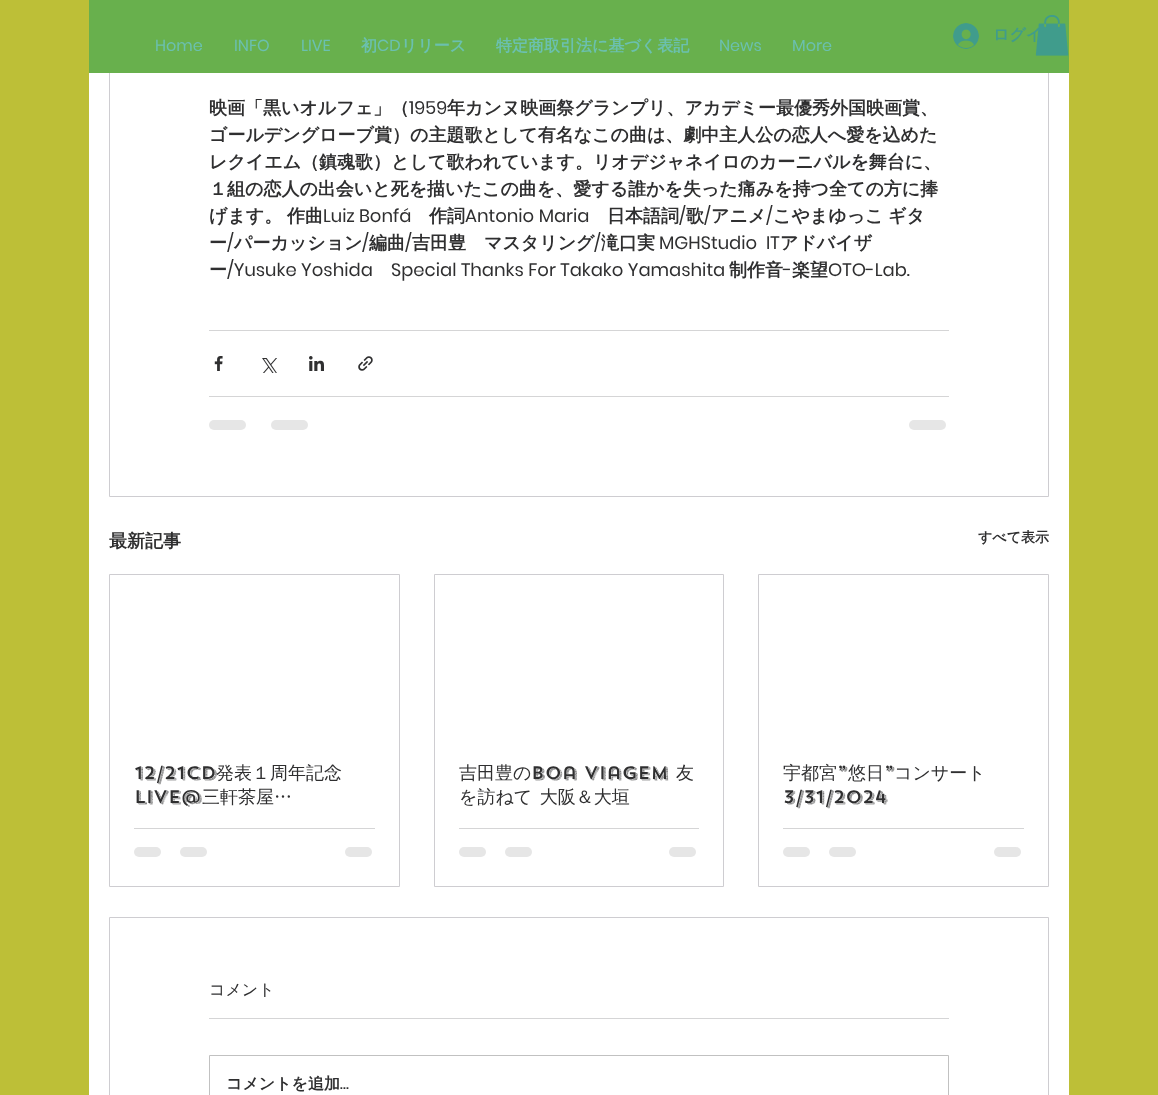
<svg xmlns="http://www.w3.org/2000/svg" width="1158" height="1095">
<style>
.a{font:bold 16px WenQuanYi Zen Hei;fill:#409c8c}
.b{font:16px Poppins;fill:#6bc0af}
.c{font:bold 16px WenQuanYi Zen Hei;fill:#6bc0af}
.d{font:bold 18px WenQuanYi Zen Hei;fill:#2f2f30}
.e{font:18px Poppins;fill:#2f2f30}
.f{font:bold 14px WenQuanYi Zen Hei;fill:#2f2f30}
.g{font:500 18px 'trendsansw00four';fill:#2f2f30}
.h{font:500 18px WenQuanYi Zen Hei;fill:#2f2f30}
.i{font:500 16px WenQuanYi Zen Hei;fill:#2f2f30}
.j{font:bold 16px WenQuanYi Zen Hei;fill:#2f2f30}
.k{font:16px Poppins;fill:#2f2f30}
</style>
<rect width="100%" height="100%" fill="#bdbf37"/>
<path fill="#fff" d="M89 73h980v1022H89z"/>
<path fill="none" stroke="#cecdd1" d="M109.5 -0.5h939v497H109.5z"/>
<path fill="#bdbf37" d="M109 0h940v73H109z"/>
<path fill="#68b04d" d="M89 0h980v73H89z"/>
<image href="1.png" x="953" y="23" width="26" height="26"/>
<path fill="#d5d5d6" d="M209 330h740v1H209z"/>
<image href="3.png" x="214" y="356" width="9" height="15"/>
<image href="4.png" x="262" y="358" width="15" height="15"/>
<image href="5.png" x="309" y="356" width="15" height="15"/>
<image href="6.png" x="358" y="356" width="15" height="15"/>
<path fill="#d5d5d6" d="M209 396h740v1H209z"/>
<rect fill="#e6e6e6" x="209" y="420" width="37" height="10" rx="5"/>
<rect fill="#e6e6e6" x="271" y="420" width="37" height="10" rx="5"/>
<rect fill="#e6e6e6" x="909" y="420" width="37" height="10" rx="5"/>
<path fill="none" stroke="#cecdd1" d="M109.5 574.5h290v312H109.5z"/>
<path fill="#d5d5d6" d="M134 828h241v1H134z"/>
<rect fill="#e6e6e6" x="134" y="847" width="27" height="10" rx="5"/>
<rect fill="#e6e6e6" x="180" y="847" width="27" height="10" rx="5"/>
<rect fill="#e6e6e6" x="345" y="847" width="27" height="10" rx="5"/>
<path fill="none" stroke="#cecdd1" d="M434.5 574.5h289v312H434.5z"/>
<path fill="#d5d5d6" d="M459 828h240v1H459z"/>
<rect fill="#e6e6e6" x="459" y="847" width="27" height="10" rx="5"/>
<rect fill="#e6e6e6" x="505" y="847" width="27" height="10" rx="5"/>
<rect fill="#e6e6e6" x="669" y="847" width="27" height="10" rx="5"/>
<path fill="none" stroke="#cecdd1" d="M758.5 574.5h290v312H758.5z"/>
<path fill="#d5d5d6" d="M783 828h241v1H783z"/>
<rect fill="#e6e6e6" x="783" y="847" width="27" height="10" rx="5"/>
<rect fill="#e6e6e6" x="829" y="847" width="27" height="10" rx="5"/>
<rect fill="#e6e6e6" x="994" y="847" width="27" height="10" rx="5"/>
<path fill="none" stroke="#cecdd1" d="M109.5 917.5h939v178H109.5z"/>
<path fill="#d5d5d6" d="M209 1018h740v1H209z"/>
<path fill="none" stroke="#c1c1c1" d="M209.5 1055.5h739v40H209.5z"/>
<text class="a" x="993" y="40">ログイ</text>
<image href="2.png" x="1035" y="15" width="34" height="41"/>
<text class="b" x="155" y="51">Home</text>
<text class="b" x="234" y="51">INFO</text>
<text class="b" x="301" y="51">LIVE</text>
<text class="c" x="361" y="51">初</text>
<text class="b" x="377" y="51">CD</text>
<text class="c" x="401" y="51">リリース</text>
<text class="c" x="496" y="51">特定商取引法に基づく表記</text>
<text class="b" x="719" y="51">News</text>
<text class="b" x="792" y="51">More</text>
<text class="d" x="209" y="114">映画「黒いオルフェ」（</text>
<text class="e" x="409" y="114">1959</text>
<text class="d" x="447" y="114">年カンヌ映画祭グランプリ、アカデミー最優秀外国映画賞、</text>
<text class="d" x="209" y="141">ゴールデングローブ賞）の主題歌として有名なこの曲は、劇中主人公の恋人へ愛を込めた</text>
<text class="d" x="209" y="168">レクイエム（鎮魂歌）として歌われています。リオデジャネイロのカーニバルを舞台に、</text>
<text class="d" x="209" y="195">１組の恋人の出会いと死を描いたこの曲を、愛する誰かを失った痛みを持つ全ての方に捧</text>
<text class="d" x="209" y="222">げます。</text>
<text class="d" x="287" y="222">作曲</text>
<text class="e" x="323" y="222">Luiz Bonfá</text>
<text class="d" x="429" y="222">作詞</text>
<text class="e" x="465" y="222">Antonio Maria</text>
<text class="d" x="607" y="222">日本語詞</text>
<text class="e" x="679" y="222">/</text>
<text class="d" x="686" y="222">歌</text>
<text class="e" x="704" y="222">/</text>
<text class="d" x="711" y="222">アニメ</text>
<text class="e" x="766" y="222">/</text>
<text class="d" x="773" y="222">こやまゆっこ</text>
<text class="d" x="888" y="222">ギタ</text>
<text class="d" x="209" y="249">ー</text>
<text class="e" x="227" y="249">/</text>
<text class="d" x="234" y="249">パーカッション</text>
<text class="e" x="362" y="249">/</text>
<text class="d" x="369" y="249">編曲</text>
<text class="e" x="405" y="249">/</text>
<text class="d" x="412" y="249">吉田豊　マスタリング</text>
<text class="e" x="594" y="249">/</text>
<text class="d" x="601" y="249">滝口実</text>
<text class="e" xml:space="preserve" x="659" y="249">MGHStudio  IT</text>
<text class="d" x="780" y="249">アドバイザ</text>
<text class="d" x="209" y="276">ー</text>
<text class="e" x="227" y="276">/Yusuke Yoshida</text>
<text class="e" x="391" y="276">Special Thanks For Takako Yamashita</text>
<text class="d" x="729" y="276">制作音</text>
<text class="e" x="783" y="276">-</text>
<text class="d" x="792" y="276">楽望</text>
<text class="e" x="828" y="276">OTO-Lab.</text>
<text class="d" x="109" y="547">最新記事</text>
<text class="f" x="978" y="542">すべて表示</text>
<text class="g" x="134" y="779">12/21CD</text>
<text class="h" x="216" y="779">発表１周年記念</text>
<text class="g" x="134" y="803">LIVE@</text>
<text class="h" x="202" y="803">三軒茶屋…</text>
<text class="h" x="459" y="779">吉田豊の</text>
<text class="g" x="531" y="779">Boa Viagem</text>
<text class="h" x="676" y="779">友</text>
<text class="h" x="459" y="803" word-spacing="2">を訪ねて 大阪＆大垣</text>
<text class="h" x="783" y="779">宇都宮</text>
<text class="g" x="837" y="779">”</text>
<text class="h" x="848" y="779">悠日</text>
<text class="g" x="884" y="779">”</text>
<text class="h" x="894" y="779">コンサート</text>
<text class="g" x="783" y="803">3/31/2024</text>
<text class="i" x="209" y="995">コメント</text>
<text class="j" x="226" y="1089">コメントを追加</text>
<text class="k" x="340" y="1089">…</text>
</svg>
